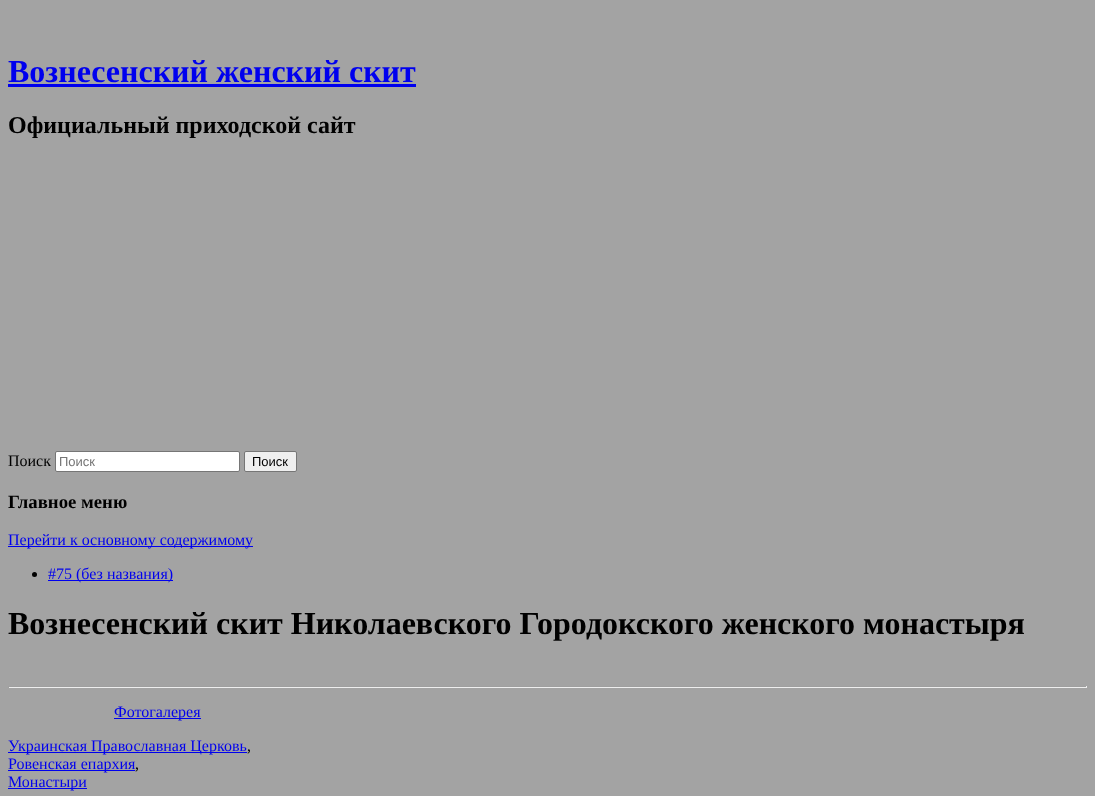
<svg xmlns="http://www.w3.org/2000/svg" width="1095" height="796">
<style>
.a{font:bold 32px Liberation Serif;fill:#00e}
.b{font:bold 24px Liberation Serif;fill:#000}
.c{font:16px Liberation Serif;fill:#000}
.d{font:13px Liberation Sans;fill:#757575}
.e{font:13px Liberation Sans;fill:#000}
.f{font:bold 18.75px Liberation Serif;fill:#000}
.g{font:16px Liberation Serif;fill:#00e}
.h{font:bold 32px Liberation Serif;fill:#000}
</style>
<rect width="100%" height="100%" fill="#a3a3a3"/>
<path fill="#00e" d="M8 84h408v3H8z"/>
<rect fill="#fff" stroke="#767676" x="55.5" y="451.5" width="184" height="20" rx="1.5"/>
<rect fill="#efefef" stroke="#767676" x="244.5" y="451.5" width="52" height="20" rx="1.5"/>
<path fill="#00e" d="M8 546h245v1H8z"/>
<circle fill="#000" cx="34.5" cy="574.5" r="2.5"/>
<path fill="#00e" d="M48 580h125v1H48z"/>
<path fill="#9f9f9f" d="M8 686h1079v1H8z"/>
<path fill="#eee" d="M1086 686h1v2H1086z"/>
<path fill="#eee" d="M8 687h1079v1H8z"/>
<path fill="#9f9f9f" d="M8 686h1v2H8z"/>
<path fill="#00e" d="M114 718h87v1H114z"/>
<path fill="#00e" d="M8 752h239v1H8z"/>
<path fill="#00e" d="M8 770h127v1H8z"/>
<path fill="#00e" d="M8 788h79v1H8z"/>
<text class="a" x="8" y="82">Вознесенский женский скит</text>
<text class="b" x="8" y="133">Официальный приходской сайт</text>
<text class="c" x="8" y="466">Поиск</text>
<text class="d" x="59" y="466">Поиск</text>
<text class="e" x="252" y="466">Поиск</text>
<text class="f" x="8" y="508">Главное меню</text>
<text class="g" x="8" y="545">Перейти к основному содержимому</text>
<text class="g" x="48" y="579">#75 (без названия)</text>
<text class="h" x="8" y="634">Вознесенский скит Николаевского Городокского женского монастыря</text>
<text class="g" x="114" y="717">Фотогалерея</text>
<text class="g" x="8" y="751">Украинская Православная Церковь</text>
<text class="c" x="247" y="751">,</text>
<text class="g" x="8" y="769">Ровенская епархия</text>
<text class="c" x="135" y="769">,</text>
<text class="g" x="8" y="787">Монастыри</text>
</svg>
